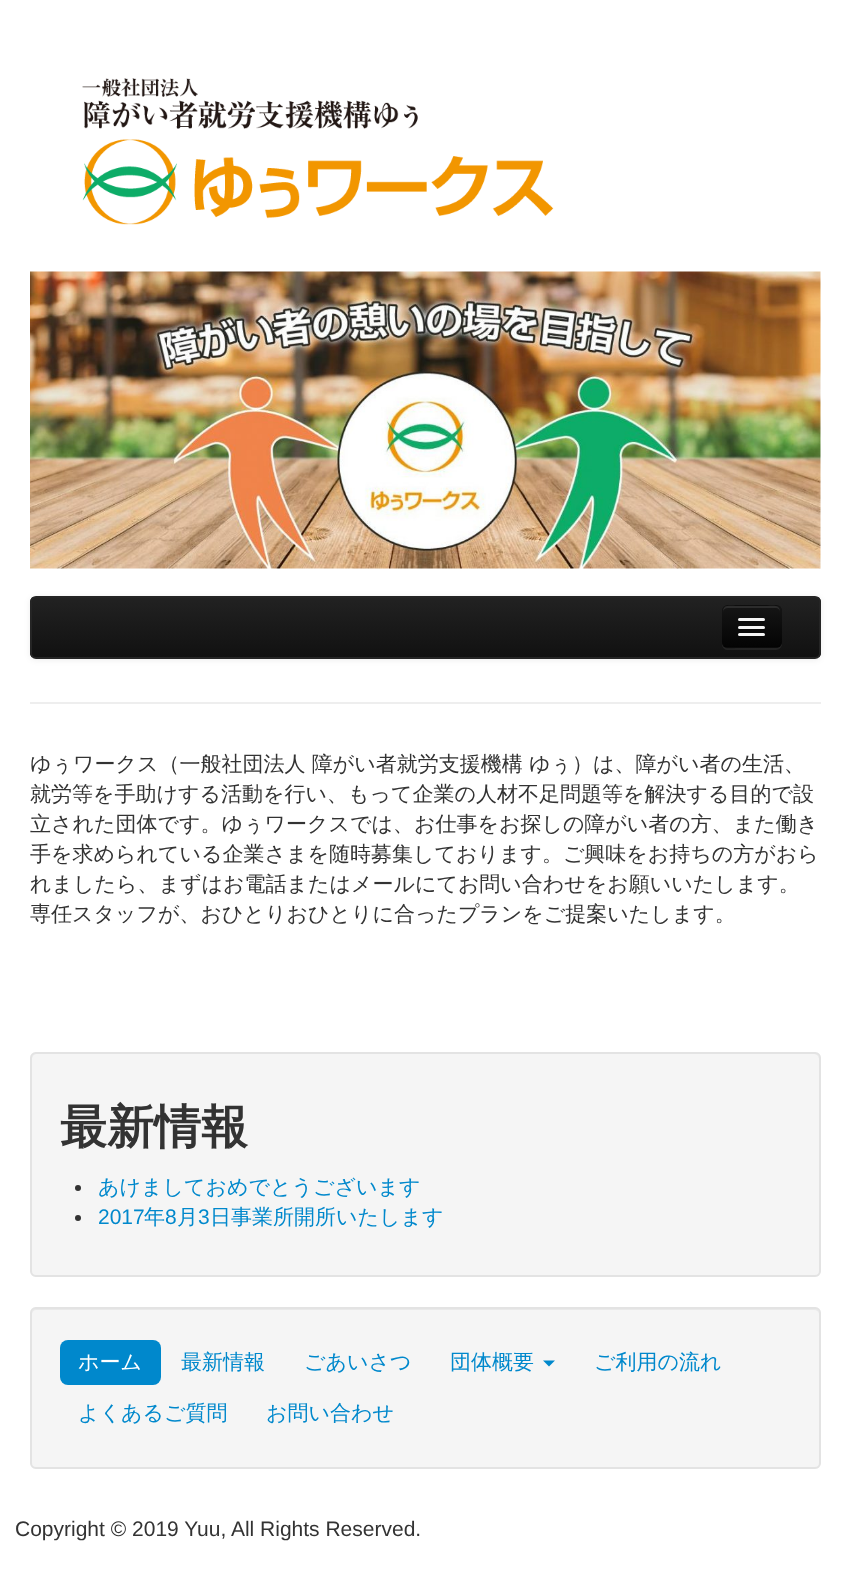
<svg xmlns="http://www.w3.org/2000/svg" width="850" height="1581">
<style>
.a{font:500 21px WenQuanYi Zen Hei;fill:#333}
.b{font:bold 47px WenQuanYi Zen Hei;fill:#333}
.c{font:500 21px WenQuanYi Zen Hei;fill:#08c}
.d{font:21px Liberation Sans;fill:#08c}
.e{font:500 21px WenQuanYi Zen Hei;fill:#fff}
.f{font:21px Liberation Sans;fill:#333}
</style>
<defs>
<clipPath id="clip1"><rect x="30" y="596" width="791" height="63" rx="6"/></clipPath>
<linearGradient id="g1" gradientUnits="userSpaceOnUse" x1="425" y1="597" x2="425" y2="657"><stop offset="0" stop-color="#222"/><stop offset="1" stop-color="#111"/></linearGradient>
<clipPath id="clip2"><rect x="722" y="605" width="60" height="43" rx="6"/></clipPath>
<linearGradient id="g2" gradientUnits="userSpaceOnUse" x1="752" y1="606" x2="752" y2="647"><stop offset="0" stop-color="#151515"/><stop offset="1" stop-color="#040404"/></linearGradient>
</defs>
<rect width="100%" height="100%" fill="#fff"/>
<image href="1.png" x="82" y="78" width="472" height="147"/>
<image href="2.png" x="30" y="271" width="791" height="298"/>
<rect fill="#00000012" filter="blur(3px)" x="30" y="597" width="791" height="63" rx="6"/>
<g clip-path="url(#clip1)">
<path fill="url(#g1)" d="M30 597h791v60H30z"/>
</g>
<rect fill="none" stroke="#252525" stroke-width="2" x="31" y="597" width="789" height="61" rx="5"/>
<path fill="#ffffff12" d="M722 644c0 4 3 6 6 6h48c3 0 6-3 6-6v-32l-1-3v34l-1 2c0 2-2 3-3 3h-41c-5 0-12 2-14-4z"/>
<rect fill="#0e0e0e" x="722" y="605" width="60" height="43" rx="6"/>
<g clip-path="url(#clip2)">
<path fill="url(#g2)" d="M722 606h60v41H722z"/>
</g>
<path fill="#2c2c2c" d="M728 608h48c2 0 4 2 4 4c0-8-7-6-13-6h-31c-6 0-13-2-13 6c0-2 2-4 5-4z"/>
<path fill="none" stroke="#00000040" stroke-width="1.5" d="M779 645.5c-1 1-2 1.5-3.5 1.5h-48c-1.5 0-2.5-.5-3.5-1.5"/>
<path fill="#0b0b0b" d="M738.5 620.5l-.5 1.5c.5 2 5 1 5.5 1h16c.5 0 5 1 5.5-1l-.5-1.5l-1 .5h-24z"/>
<rect fill="#f5f5f5" x="738" y="618" width="27" height="3" rx="1.5"/>
<path fill="#080808" d="M738 628c-1.5 3 5.5 2 5.5 2h16c0 0 7 1 5.5-2c-.5 0-1 .5-1.5 .5h-24c-.5 0-1-.5-1.5-.5z"/>
<rect fill="#f5f5f5" x="738" y="626" width="27" height="3" rx="1.5"/>
<rect fill="#f5f5f5" x="738" y="633" width="27" height="3" rx="1.5"/>
<path fill="#eee" d="M30 702h791v2H30z"/>
<rect fill="#f5f5f5" x="30" y="1052" width="791" height="225" rx="6"/>
<path fill="#e9e9e9" d="M36 1054h778c3 0 5 3 5 5v-1c0-3-2-5-5-5h-777c-3 0-5 2-5 5v1c0-2 2-5 4-5z"/>
<rect fill="none" stroke="#e3e3e3" stroke-width="2" x="31" y="1053" width="789" height="223" rx="5"/>
<circle fill="#333" cx="78" cy="1188" r="3"/>
<circle fill="#333" cx="78" cy="1218" r="3"/>
<rect fill="#f5f5f5" x="30" y="1307" width="791" height="162" rx="6"/>
<path fill="#e9e9e9" d="M36 1310h778c3 0 5 2 5 4v-1c0-3-2-5-5-5h-777c-3 0-5 2-5 5v1c0-2 2-4 4-4z"/>
<rect fill="none" stroke="#e3e3e3" stroke-width="2" x="31" y="1308" width="789" height="160" rx="5"/>
<rect fill="#08c" x="60" y="1340" width="101" height="45" rx="8"/>
<path fill="#08c" d="M543 1360.5h12l-6 6z"/>
<text class="a" x="30" y="771">ゆぅワークス（一般社団法人 障がい者就労支援機構 ゆぅ）は、障がい者の生活、</text>
<text class="a" x="30" y="801">就労等を手助けする活動を行い、もって企業の人材不足問題等を解決する目的で設</text>
<text class="a" x="30" y="831">立された団体です。ゆぅワークスでは、お仕事をお探しの障がい者の方、また働き</text>
<text class="a" x="30" y="861">手を求められている企業さまを随時募集しております。ご興味をお持ちの方がおら</text>
<text class="a" x="30" y="891">れましたら、まずはお電話またはメールにてお問い合わせをお願いいたします。</text>
<text class="a" x="30" y="921">専任スタッフが、おひとりおひとりに合ったプランをご提案いたします。</text>
<text class="b" x="60" y="1143">最新情報</text>
<text class="c" x="98" y="1194">あけましておめでとうございます</text>
<text class="d" x="98" y="1224">2017</text>
<text class="c" x="144" y="1224">年</text>
<text class="d" x="165" y="1224">8</text>
<text class="c" x="177" y="1224">月</text>
<text class="d" x="198" y="1224">3</text>
<text class="c" x="210" y="1224">日事業所開所いたします</text>
<text class="e" x="78" y="1369">ホーム</text>
<text class="c" x="181" y="1369">最新情報</text>
<text class="c" x="304" y="1369">ごあいさつ</text>
<text class="c" x="450" y="1369">団体概要</text>
<text class="c" x="594" y="1369">ご利用の流れ</text>
<text class="c" x="78" y="1420">よくあるご質問</text>
<text class="c" x="266" y="1420">お問い合わせ</text>
<text class="f" x="15" y="1536">Copyright © 2019 Yuu, All Rights Reserved.</text>
</svg>
